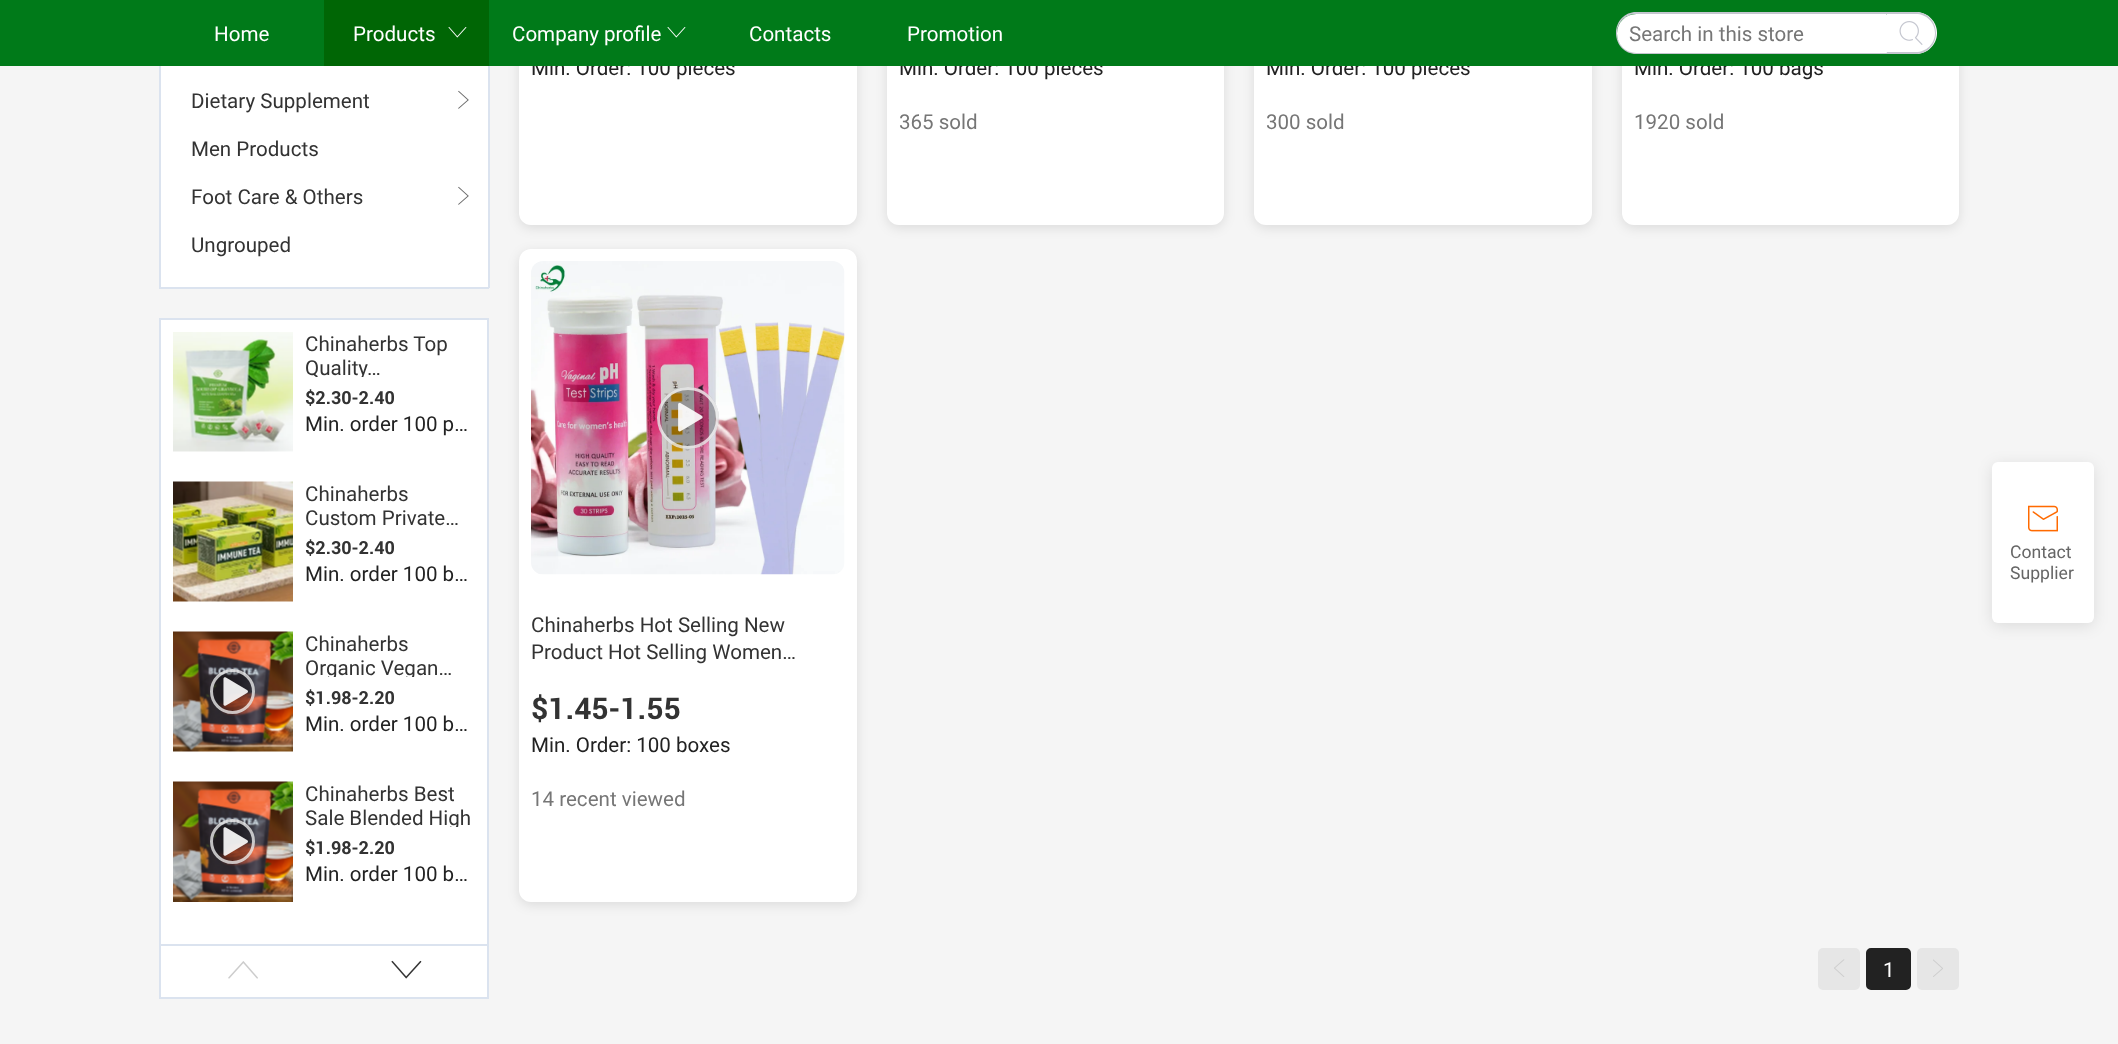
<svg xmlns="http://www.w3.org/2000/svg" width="2118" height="1044">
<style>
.a{font:21px Roboto;fill:#333}
.b{font:bold 18px Roboto;fill:#333}
.c{font:21px Roboto;fill:#222}
.d{font:21px Roboto;fill:#767676}
.e{font:21px Roboto;fill:#fff}
.f{font:bold 30px Roboto;fill:#333}
.g{font:18px Roboto;fill:#666}
</style>
<defs>
<clipPath id="clip1"><path d="M305 332h171v45H305z"/></clipPath>
<clipPath id="clip2"><path d="M305 632h171v45H305z"/></clipPath>
<clipPath id="clip3"><path d="M305 782h171v45H305z"/></clipPath>
</defs>
<rect width="100%" height="100%" fill="#f5f5f5"/>
<path fill="#fff" d="M161 66h327v221H161z"/>
<path fill="#dbe3ef" d="M488 66h2v222H488z"/>
<path fill="#dbe3ef" d="M159 287h330v2H159z"/>
<path fill="#dbe3ef" d="M159 66h2v222H159z"/>
<image href="4.png" x="458" y="90" width="11" height="19"/>
<image href="4.png" x="458" y="186" width="11" height="19"/>
<path fill="#fff" stroke="#dbe3ef" stroke-width="2" d="M160 319h328v679H160z"/>
<image href="5.png" x="173" y="332" width="120" height="120"/>
<image href="6.png" x="173" y="481" width="120" height="121"/>
<image href="7.png" x="173" y="631" width="120" height="121"/>
<circle fill="#00000045" cx="232.5" cy="691.5" r="22.5"/>
<circle fill="none" stroke="#ffffffb8" stroke-width="3" cx="232.5" cy="691.5" r="21"/>
<image href="8.png" x="223" y="677" width="25" height="29"/>
<image href="9.png" x="173" y="781" width="120" height="121"/>
<circle fill="#00000045" cx="232.5" cy="841.5" r="22.5"/>
<circle fill="none" stroke="#ffffffb8" stroke-width="3" cx="232.5" cy="841.5" r="21"/>
<image href="10.png" x="223" y="827" width="25" height="29"/>
<path fill="#dbe3ef" d="M161 944h327v2H161z"/>
<image href="11.png" x="228" y="961" width="30" height="18"/>
<image href="12.png" x="391" y="960" width="31" height="19"/>
<rect fill="#0000001a" filter="blur(6px)" x="519" y="-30" width="338" height="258" rx="12"/>
<rect fill="#fff" x="519" y="-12" width="338" height="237" rx="12"/>
<rect fill="#0000001a" filter="blur(6px)" x="887" y="-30" width="337" height="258" rx="12"/>
<rect fill="#fff" x="887" y="-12" width="337" height="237" rx="12"/>
<rect fill="#0000001a" filter="blur(6px)" x="1254" y="-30" width="338" height="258" rx="12"/>
<rect fill="#fff" x="1254" y="-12" width="338" height="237" rx="12"/>
<rect fill="#0000001a" filter="blur(6px)" x="1622" y="-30" width="337" height="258" rx="12"/>
<rect fill="#fff" x="1622" y="-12" width="337" height="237" rx="12"/>
<rect fill="#0000001a" filter="blur(6px)" x="519" y="252" width="338" height="653" rx="12"/>
<rect fill="#fff" x="519" y="249" width="338" height="653" rx="12"/>
<image href="13.png" x="531" y="261" width="314" height="314"/>
<circle fill="#00000045" cx="688" cy="418" r="31"/>
<circle fill="none" stroke="#ffffffb8" stroke-width="3" cx="688" cy="418" r="29.5"/>
<image href="14.png" x="678" y="402" width="25" height="30"/>
<rect fill="#e6e6e6" stroke="#e6e6e6" stroke-width="2" x="1819" y="949" width="40" height="40" rx="4"/>
<image href="15.png" x="1834" y="959" width="11" height="18"/>
<rect fill="#222" stroke="#222" stroke-width="2" x="1867" y="949" width="43" height="40" rx="4"/>
<rect fill="#e6e6e6" stroke="#e6e6e6" stroke-width="2" x="1918" y="949" width="40" height="40" rx="4"/>
<image href="16.png" x="1933" y="959" width="10" height="18"/>
<rect fill="#0000001a" filter="blur(7.5px)" x="1992" y="465" width="102" height="161" rx="6"/>
<rect fill="#fff" x="1992" y="462" width="102" height="161" rx="6"/>
<image href="17.png" x="2028" y="505" width="30" height="27"/>
<text class="a" x="191" y="108">Dietary Supplement</text>
<text class="a" x="191" y="156">Men Products</text>
<text class="a" x="191" y="204">Foot Care &amp; Others</text>
<text class="a" x="191" y="252">Ungrouped</text>
<text class="a" x="305" y="351">Chinaherbs Top</text>
<g clip-path="url(#clip1)">
<text class="a" x="305" y="375">Quality…</text>
</g>
<text class="b" x="305" y="404">$2.30-2.40</text>
<text class="c" x="305" y="431">Min. order 100 p…</text>
<text class="a" x="305" y="501">Chinaherbs</text>
<text class="a" x="305" y="525">Custom Private…</text>
<text class="b" x="305" y="554">$2.30-2.40</text>
<text class="c" x="305" y="581">Min. order 100 b…</text>
<text class="a" x="305" y="651">Chinaherbs</text>
<g clip-path="url(#clip2)">
<text class="a" x="305" y="675">Organic Vegan…</text>
</g>
<text class="b" x="305" y="704">$1.98-2.20</text>
<text class="c" x="305" y="731">Min. order 100 b…</text>
<text class="a" x="305" y="801">Chinaherbs Best</text>
<g clip-path="url(#clip3)">
<text class="a" x="305" y="825">Sale Blended High</text>
</g>
<text class="b" x="305" y="854">$1.98-2.20</text>
<text class="c" x="305" y="881">Min. order 100 b…</text>
<text class="c" x="531" y="75">Min. Order: 100 pieces</text>
<text class="c" x="899" y="75">Min. Order: 100 pieces</text>
<text class="d" x="899" y="129">365 sold</text>
<text class="c" x="1266" y="75">Min. Order: 100 pieces</text>
<text class="d" x="1266" y="129">300 sold</text>
<text class="c" x="1634" y="75">Min. Order: 100 bags</text>
<path fill="#007a19" d="M0 0h2118v66H0z"/>
<path fill="#fff" d="M1887 12h29c11.5 0 21 9.5 21 21c0 11.5-9.5 21-21 21h-29z"/>
<path fill="#c4c6cf" fill-rule="evenodd" d="M1887 12h29c11 0 20 9 20 21c0 12-9 21-20 21h-29zm0 2h29c10 0 19 8 19 19c0 11-9 19-19 19h-29z"/>
<image href="3.png" x="1899" y="21" width="24" height="24"/>
<path fill="#c4c6cf" fill-rule="evenodd" d="M1636 12h251v42h-251c-11 0-20-9-20-21c0-12 9-21 20-21zm0 2h251v38h-251c-10 0-19-8-19-19c0-11 9-19 19-19z"/>
<path fill="#fff" d="M1636.5 14h249.5c.5 0 1 .5 1 1v37c0 .5-.5 1-1 1h-249.5c-11 0-19.5-8.5-19.5-19.5c0-11 8.5-19.5 19.5-19.5z"/>
<text class="d" x="1629" y="41">Search in this store</text>
<text class="e" x="907" y="41">Promotion</text>
<text class="e" x="749" y="41">Contacts</text>
<image href="2.png" x="667" y="27" width="19" height="11"/>
<text class="e" x="512" y="41">Company profile</text>
<path fill="#006605" d="M324 0h165v66H324z"/>
<image href="1.png" x="448" y="27" width="19" height="11"/>
<text class="e" x="353" y="41">Products</text>
<text class="e" x="214" y="41">Home</text>
<text class="d" x="1634" y="129">1920 sold</text>
<text class="a" x="531" y="632">Chinaherbs Hot Selling New</text>
<text class="a" x="531" y="659">Product Hot Selling Women…</text>
<text class="f" x="531" y="719">$1.45-1.55</text>
<text class="c" x="531" y="752">Min. Order: 100 boxes</text>
<text class="d" x="531" y="806">14 recent viewed</text>
<text class="e" x="1883" y="977">1</text>
<text class="g" x="2010" y="558">Contact</text>
<text class="g" x="2010" y="579">Supplier</text>
</svg>
